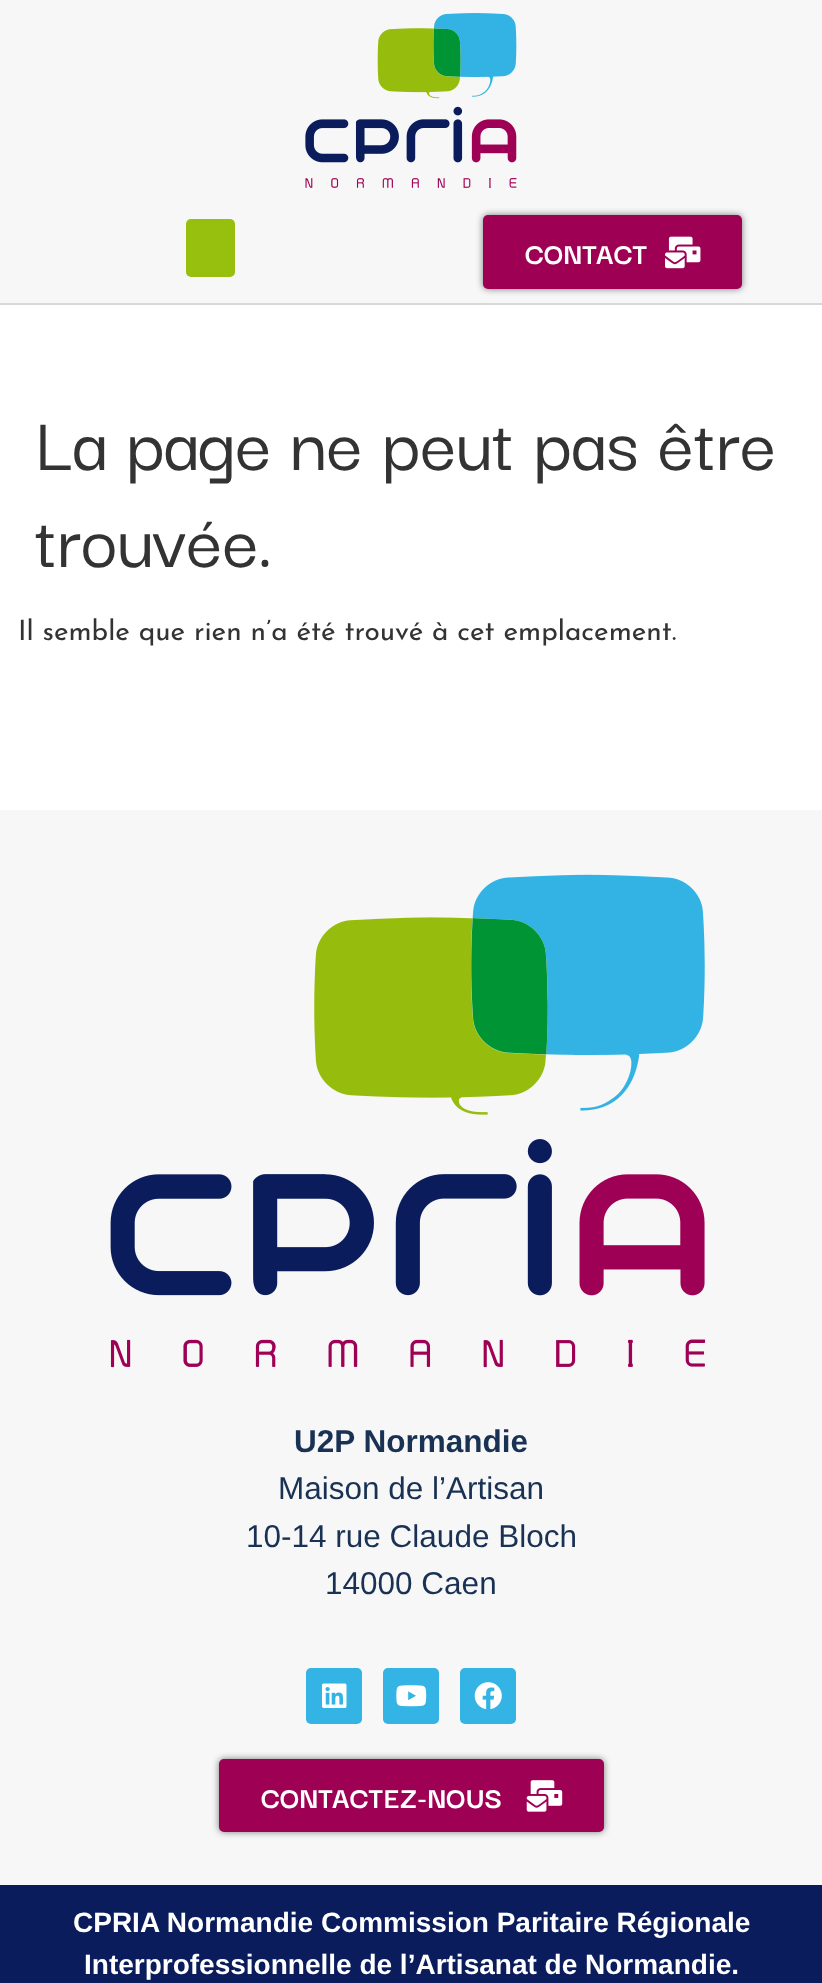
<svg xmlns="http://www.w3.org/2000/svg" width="822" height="1983">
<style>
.a{font:bold 31.5px Darker Grotesque;fill:#fff}
.b{font:500 80.5px Darker Grotesque;fill:#333}
.c{font:28px Josefin Sans;fill:#333}
.d{font:bold 31.5px Liberation Sans;fill:#193254}
.e{font:31.5px Liberation Sans;fill:#193254}
.f{font:bold 28px Liberation Sans;fill:#fff}
</style>
<rect width="100%" height="100%" fill="#fff"/>
<path fill="#f7f7f7" d="M0 0h822v303H0z"/>
<path fill="#d8d8d8" d="M0 303h822v2H0z"/>
<image href="1.png" x="305" y="13" width="212" height="175"/>
<rect fill="#97bf0d" x="186" y="219" width="49" height="58" rx="5"/>
<rect fill="#00000080" filter="blur(3.5px)" x="483" y="215" width="259" height="74" rx="5"/>
<rect fill="#9e0054" x="483" y="215" width="259" height="74" rx="5"/>
<image href="2.png" x="665" y="236" width="36" height="33"/>
<path fill="#f7f7f7" d="M0 810h822v1075H0z"/>
<image href="3.png" x="110" y="874" width="596" height="494"/>
<rect fill="#34b4e4" x="306" y="1668" width="56" height="56" rx="5"/>
<image href="4.png" x="322" y="1683" width="25" height="25"/>
<rect fill="#34b4e4" x="383" y="1668" width="56" height="56" rx="5"/>
<image href="5.png" x="396" y="1685" width="31" height="22"/>
<rect fill="#34b4e4" x="460" y="1668" width="56" height="56" rx="5"/>
<image href="6.png" x="474" y="1682" width="28" height="28"/>
<rect fill="#00000080" filter="blur(3.5px)" x="219" y="1759" width="385" height="73" rx="5"/>
<rect fill="#9e0054" x="219" y="1759" width="385" height="73" rx="5"/>
<image href="7.png" x="526" y="1780" width="37" height="32"/>
<path fill="#0a1c5c" d="M0 1885h822v98H0z"/>
<text class="a" x="525" y="264">CONTACT</text>
<text class="b" x="35" y="470">La page ne peut pas être</text>
<text class="b" x="35" y="567">trouvée.</text>
<text class="c" x="18" y="640">Il semble que rien n’a été trouvé à cet emplacement.</text>
<text class="d" x="294" y="1452">U2P Normandie</text>
<text class="e" x="278" y="1499">Maison de l’Artisan</text>
<text class="e" x="246" y="1547">10-14 rue Claude Bloch</text>
<text class="e" x="325" y="1594">14000 Caen</text>
<text class="a" x="261" y="1808">CONTACTEZ-NOUS</text>
<text class="f" x="73" y="1932">CPRIA Normandie Commission Paritaire Régionale</text>
<text class="f" x="84" y="1974">Interprofessionnelle de l’Artisanat de Normandie.</text>
</svg>
